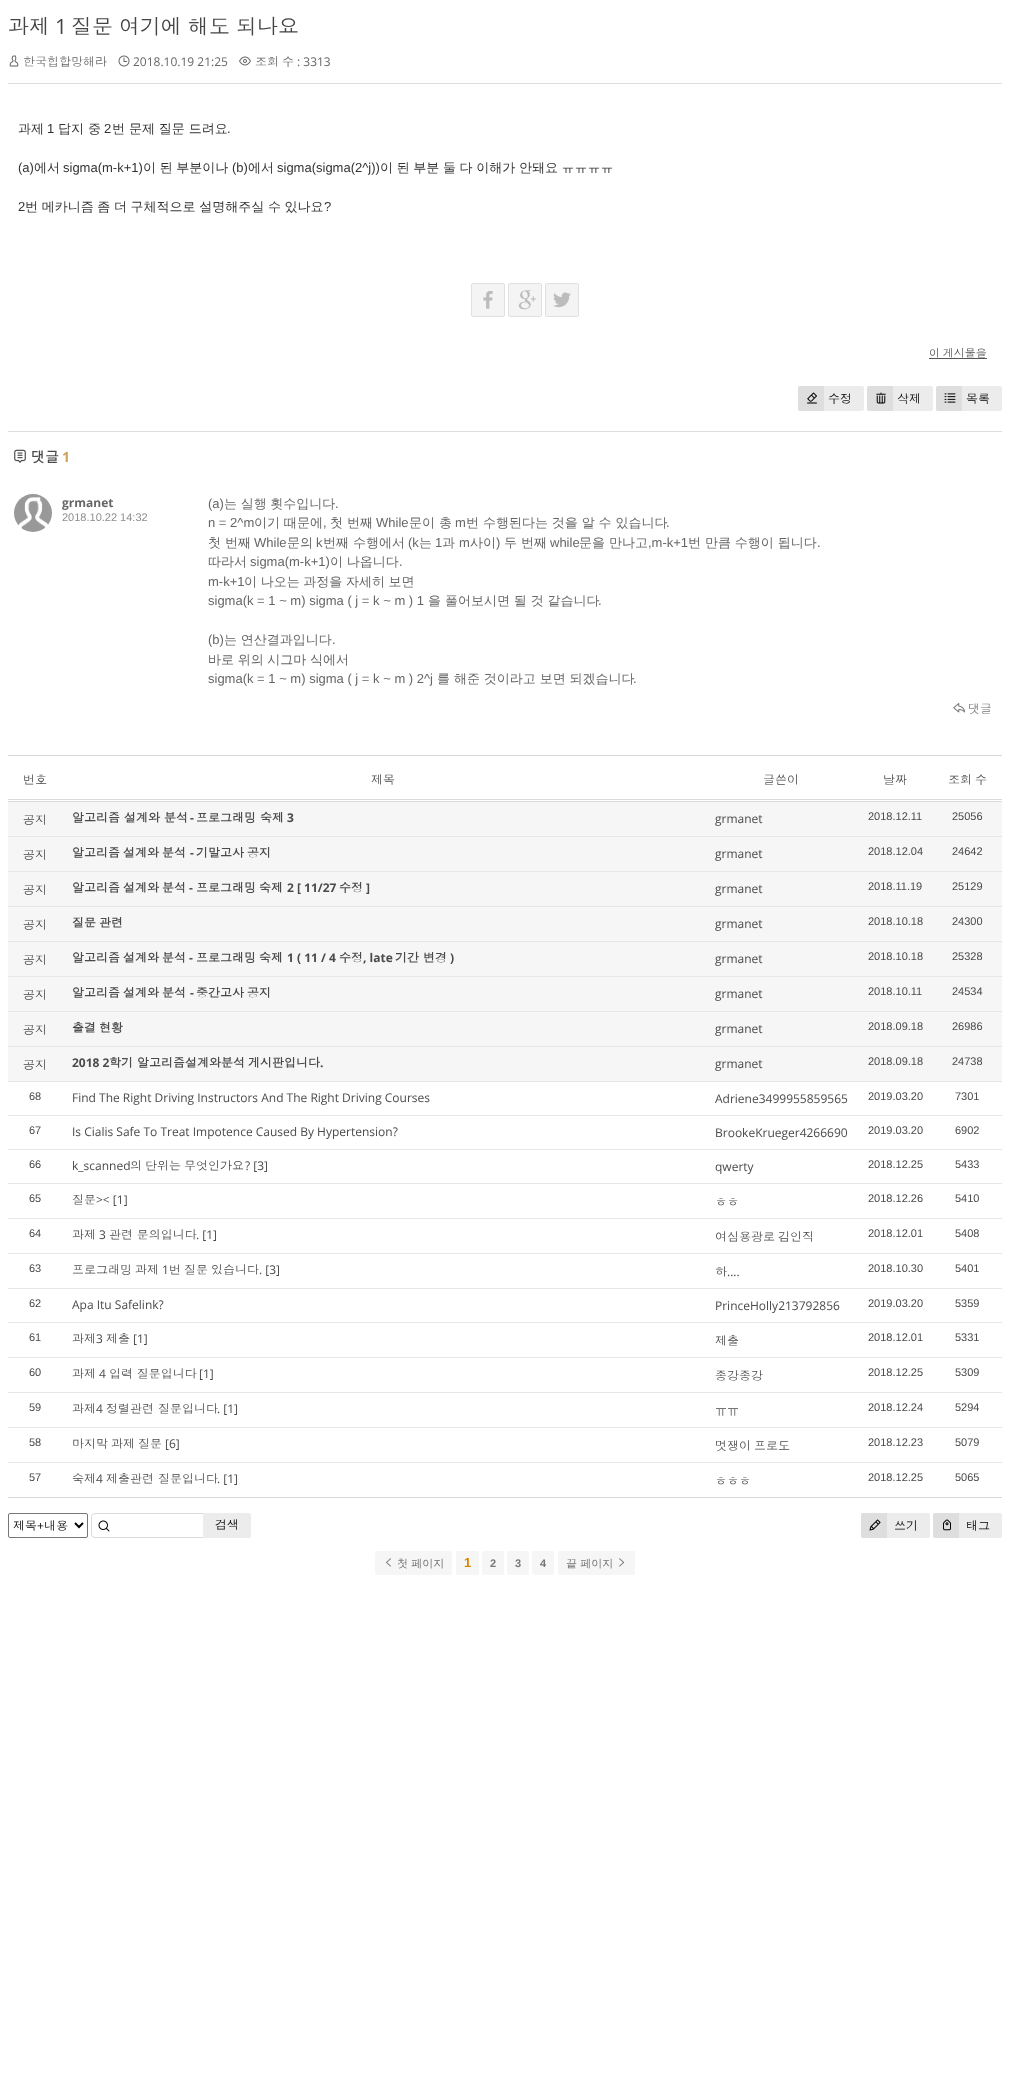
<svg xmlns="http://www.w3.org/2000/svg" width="1010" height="2083">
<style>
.a{font:21px Dotum;fill:#444}
.b{font:21px Open Sans;fill:#444}
.c{font:12px Dotum;fill:#666}
.d{font:12px Open Sans;fill:#666}
.e{font:500 13px WenQuanYi Zen Hei;fill:#333}
.f{font:13px Liberation Sans;fill:#333}
.g{font:11px Dotum;fill:#555}
.h{font:12px Dotum;fill:#000}
.i{font:bold 14px Dotum;fill:#4a4a4a}
.j{font:bold 14px Open Sans;fill:#cda25a}
.k{font:bold 12px Open Sans;fill:#666}
.l{font:11px Liberation Sans;fill:#8e8e8e}
.m{font:13px Liberation Sans;fill:#666}
.n{font:500 13px WenQuanYi Zen Hei;fill:#666}
.o{font:12px Dotum;fill:#767676}
.p{font:12px Dotum;fill:#4a4a4a}
.q{font:bold 12px Dotum;fill:#4a4a4a}
.r{font:bold 12px Open Sans;fill:#4a4a4a}
.s{font:12px Open Sans;fill:#4a4a4a}
.t{font:11px Liberation Sans;fill:#4a4a4a}
.u{font:12px Open Sans;fill:#000}
.v{font:500 11px WenQuanYi Zen Hei;fill:#767676}
.w{font:bold 13px Liberation Sans;fill:#d88700}
.x{font:bold 11px Liberation Sans;fill:#767676}
</style>
<rect width="100%" height="100%" fill="#fff"/>
<path fill="#ddd" d="M8 83h994v1H8z"/>
<image href="1.png" x="9" y="55" width="10" height="12"/>
<image href="2.png" x="118" y="55" width="12" height="12"/>
<image href="3.png" x="239" y="56" width="12" height="10"/>
<rect fill="#f4f4f4" stroke="#e0e0e0" x="471.5" y="283.5" width="33" height="33" rx="1.5"/>
<image href="4.png" x="483" y="291" width="10" height="18"/>
<rect fill="#f4f4f4" stroke="#e0e0e0" x="508.5" y="283.5" width="33" height="33" rx="1.5"/>
<image href="5.png" x="518" y="290" width="18" height="20"/>
<rect fill="#f4f4f4" stroke="#e0e0e0" x="545.5" y="283.5" width="33" height="33" rx="1.5"/>
<image href="6.png" x="553" y="292" width="18" height="16"/>
<path fill="#555" d="M929 358h58v1H929z"/>
<rect fill="#ececec" x="798" y="386" width="66" height="25" rx="2"/>
<path fill="#dedede" d="M800 386h24v25h-24c-1 0-2-1-2-2v-21c0-1 1-2 2-2z"/>
<image href="7.png" x="807" y="392" width="10" height="12"/>
<rect fill="#ececec" x="867" y="386" width="66" height="25" rx="2"/>
<path fill="#dedede" d="M869 386h24v25h-24c-1 0-2-1-2-2v-21c0-1 1-2 2-2z"/>
<image href="8.png" x="876" y="392" width="10" height="12"/>
<rect fill="#ececec" x="936" y="386" width="66" height="25" rx="2"/>
<path fill="#dedede" d="M938 386h24v25h-24c-1 0-2-1-2-2v-21c0-1 1-2 2-2z"/>
<image href="9.png" x="944" y="393" width="12" height="10"/>
<path fill="#ddd" d="M8 431h994v1H8z"/>
<image href="10.png" x="14" y="449" width="12" height="14"/>
<image href="11.png" x="14" y="494" width="38" height="38"/>
<image href="12.png" x="953" y="703" width="12" height="10"/>
<path fill="#d8d8d8" d="M8 755h994v1H8z"/>
<path fill="#d8d8d8" d="M8 1497h994v1H8z"/>
<path fill="#dbdbdb" d="M8 799h994v1H8z"/>
<path fill="#dbdbdb" d="M8 801h994v1H8z"/>
<path fill="#f6f6f6" d="M8 802h994v34H8z"/>
<path fill="#e6e6e6" d="M8 836h994v1H8z"/>
<path fill="#f6f6f6" d="M8 837h994v34H8z"/>
<path fill="#e6e6e6" d="M8 871h994v1H8z"/>
<path fill="#f6f6f6" d="M8 872h994v34H8z"/>
<path fill="#e6e6e6" d="M8 906h994v1H8z"/>
<path fill="#f6f6f6" d="M8 907h994v34H8z"/>
<path fill="#e6e6e6" d="M8 941h994v1H8z"/>
<path fill="#f6f6f6" d="M8 942h994v34H8z"/>
<path fill="#e6e6e6" d="M8 976h994v1H8z"/>
<path fill="#f6f6f6" d="M8 977h994v34H8z"/>
<path fill="#e6e6e6" d="M8 1011h994v1H8z"/>
<path fill="#f6f6f6" d="M8 1012h994v34H8z"/>
<path fill="#e6e6e6" d="M8 1046h994v1H8z"/>
<path fill="#f6f6f6" d="M8 1047h994v34H8z"/>
<path fill="#e6e6e6" d="M8 1081h994v1H8z"/>
<path fill="#e6e6e6" d="M8 1115h994v1H8z"/>
<path fill="#e6e6e6" d="M8 1149h994v1H8z"/>
<path fill="#e6e6e6" d="M8 1183h994v1H8z"/>
<path fill="#e6e6e6" d="M8 1218h994v1H8z"/>
<path fill="#e6e6e6" d="M8 1253h994v1H8z"/>
<path fill="#e6e6e6" d="M8 1288h994v1H8z"/>
<path fill="#e6e6e6" d="M8 1322h994v1H8z"/>
<path fill="#e6e6e6" d="M8 1357h994v1H8z"/>
<path fill="#e6e6e6" d="M8 1392h994v1H8z"/>
<path fill="#e6e6e6" d="M8 1427h994v1H8z"/>
<path fill="#e6e6e6" d="M8 1462h994v1H8z"/>
<image href="13.png" x="98" y="1520" width="12" height="12"/>
<rect fill="none" stroke="#dbdbdb" x="91.5" y="1513.5" width="159" height="24" rx="3.5"/>
<rect fill="none" stroke="#767676" x="8.5" y="1513.5" width="79" height="24" rx="1.5"/>
<path fill="none" stroke="#000" stroke-width="2" d="M75 1523l4 4l4-4"/>
<path fill="#ececec" d="M203 1513h46c1 0 2 1 2 2v21c0 1-1 2-2 2h-46z"/>
<rect fill="#ececec" x="861" y="1513" width="69" height="25" rx="2"/>
<path fill="#dedede" d="M863 1513h24v25h-24c-1 0-2-1-2-2v-21c0-1 1-2 2-2z"/>
<image href="14.png" x="869" y="1519" width="12" height="12"/>
<rect fill="#ececec" x="933" y="1513" width="69" height="25" rx="2"/>
<path fill="#dedede" d="M935 1513h24v25h-24c-1 0-2-1-2-2v-21c0-1 1-2 2-2z"/>
<image href="15.png" x="943" y="1519" width="8" height="12"/>
<rect fill="#f6f6f6" x="375" y="1551" width="77" height="24" rx="2"/>
<image href="16.png" x="386" y="1558" width="5" height="9"/>
<rect fill="#f6f6f6" x="456" y="1551" width="23" height="24" rx="2"/>
<rect fill="#f6f6f6" x="482" y="1551" width="22" height="24" rx="2"/>
<rect fill="#f6f6f6" x="507" y="1551" width="22" height="24" rx="2"/>
<rect fill="#f6f6f6" x="532" y="1551" width="22" height="24" rx="2"/>
<rect fill="#f6f6f6" x="558" y="1551" width="77" height="24" rx="2"/>
<image href="17.png" x="619" y="1558" width="6" height="9"/>
<text class="a" x="8" y="34">과제</text>
<text class="b" x="55" y="34">1</text>
<text class="a" x="71" y="34" word-spacing="-1">질문 여기에 해도 되나요</text>
<text class="c" x="23" y="66">한국힙합망해라</text>
<text class="d" x="133" y="66">2018.10.19 21:25</text>
<text class="c" x="255" y="66">조회</text>
<text class="c" x="282" y="66">수</text>
<text class="d" x="297" y="66">: 3313</text>
<text class="e" x="18" y="133">과제</text>
<text class="f" x="47" y="133">1</text>
<text class="e" x="58" y="133">답지 중</text>
<text class="f" x="104" y="133">2</text>
<text class="e" x="112" y="133">번 문제 질문 드려요</text>
<text class="f" x="227" y="133">.</text>
<text class="f" x="18" y="172">(a)</text>
<text class="e" x="34" y="172">에서</text>
<text class="f" x="63" y="172">sigma(m-k+1)</text>
<text class="e" x="143" y="172" word-spacing="-0.25">이 된 부분이나</text>
<text class="f" x="232" y="172">(b)</text>
<text class="e" x="248" y="172">에서</text>
<text class="f" x="277" y="172">sigma(sigma(2^j))</text>
<text class="e" x="380" y="172" word-spacing="-0.25">이 된 부분 둘 다 이해가 안돼요 ㅠㅠㅠㅠ</text>
<text class="f" x="18" y="211">2</text>
<text class="e" x="25" y="211" word-spacing="-0.25">번 메카니즘 좀 더 구체적으로 설명해주실 수 있나요</text>
<text class="f" x="324" y="211">?</text>
<text class="g" x="929" y="357" word-spacing="-1">이 게시물을</text>
<text class="h" x="828" y="403">수정</text>
<text class="h" x="897" y="403">삭제</text>
<text class="h" x="966" y="403">목록</text>
<text class="i" x="31" y="462">댓글</text>
<text class="j" x="62" y="462">1</text>
<text class="k" x="62" y="507">grmanet</text>
<text class="l" x="62" y="521">2018.10.22 14:32</text>
<text class="m" x="208" y="508">(a)</text>
<text class="n" x="224" y="508" word-spacing="-0.25">는 실행 횟수입니다</text>
<text class="m" x="335" y="508">.</text>
<text class="m" x="208" y="527">n = 2^m</text>
<text class="n" x="254" y="527">이기 때문에</text>
<text class="m" x="323" y="527">,</text>
<text class="n" x="330" y="527">첫 번째</text>
<text class="m" x="376" y="527">While</text>
<text class="n" x="409" y="527">문이 총</text>
<text class="m" x="455" y="527">m</text>
<text class="n" x="466" y="527">번 수행된다는 것을 알 수 있습니다</text>
<text class="m" x="666" y="527">.</text>
<text class="n" x="208" y="547">첫 번째</text>
<text class="m" x="254" y="547">While</text>
<text class="n" x="287" y="547">문의</text>
<text class="m" x="316" y="547">k</text>
<text class="n" x="323" y="547">번째 수행에서</text>
<text class="m" x="408" y="547">(k</text>
<text class="n" x="419" y="547">는</text>
<text class="m" x="435" y="547">1</text>
<text class="n" x="442" y="547">과</text>
<text class="m" x="459" y="547">m</text>
<text class="n" x="470" y="547">사이</text>
<text class="m" x="496" y="547">)</text>
<text class="n" x="504" y="547">두 번째</text>
<text class="m" x="550" y="547">while</text>
<text class="n" x="579" y="547">문을 만나고</text>
<text class="m" x="648" y="547">,m-k+1</text>
<text class="n" x="688" y="547">번 만큼 수행이 됩니다</text>
<text class="m" x="817" y="547">.</text>
<text class="n" x="208" y="566">따라서</text>
<text class="m" x="250" y="566">sigma(m-k+1)</text>
<text class="n" x="330" y="566" word-spacing="-0.25">이 나옵니다</text>
<text class="m" x="399" y="566">.</text>
<text class="m" x="208" y="586">m-k+1</text>
<text class="n" x="244" y="586" word-spacing="-0.25">이 나오는 과정을 자세히 보면</text>
<text class="m" x="208" y="605">sigma(k = 1 ~ m) sigma ( j = k ~ m ) 1</text>
<text class="n" x="428" y="605">을 풀어보시면 될 것 같습니다</text>
<text class="m" x="598" y="605">.</text>
<text class="m" x="208" y="644">(b)</text>
<text class="n" x="224" y="644" word-spacing="-0.25">는 연산결과입니다</text>
<text class="m" x="332" y="644">.</text>
<text class="n" x="208" y="664" word-spacing="-0.25">바로 위의 시그마 식에서</text>
<text class="m" x="208" y="683">sigma(k = 1 ~ m) sigma ( j = k ~ m ) 2^j</text>
<text class="n" x="437" y="683">를 해준 것이라고 보면 되겠습니다</text>
<text class="m" x="633" y="683">.</text>
<text class="o" x="968" y="713">댓글</text>
<text class="p" x="23" y="784">번호</text>
<text class="p" x="371" y="784">제목</text>
<text class="p" x="763" y="784">글쓴이</text>
<text class="p" x="883" y="784">날짜</text>
<text class="p" x="948" y="784" word-spacing="-1">조회 수</text>
<text class="p" x="23" y="824">공지</text>
<text class="q" x="72" y="822">알고리즘 설계와 분석</text>
<text class="r" x="190" y="822">-</text>
<text class="q" x="196" y="822">프로그래밍 숙제</text>
<text class="r" x="287" y="822">3</text>
<text class="s" x="715" y="823">grmanet</text>
<text class="t" x="868" y="820">2018.12.11</text>
<text class="t" x="952" y="820">25056</text>
<text class="p" x="23" y="859">공지</text>
<text class="q" x="72" y="857" word-spacing="-1">알고리즘 설계와 분석</text>
<text class="r" x="190" y="857">-</text>
<text class="q" x="196" y="857" word-spacing="-1">기말고사 공지</text>
<text class="s" x="715" y="858">grmanet</text>
<text class="t" x="868" y="855">2018.12.04</text>
<text class="t" x="952" y="855">24642</text>
<text class="p" x="23" y="894">공지</text>
<text class="q" x="72" y="892">알고리즘</text>
<text class="q" x="123" y="892">설계와</text>
<text class="q" x="162" y="892">분석</text>
<text class="r" x="189" y="892">-</text>
<text class="q" x="196" y="892">프로그래밍</text>
<text class="q" x="259" y="892">숙제</text>
<text class="r" x="287" y="892">2 [ 11/27</text>
<text class="q" x="339" y="892">수정</text>
<text class="r" x="366" y="892">]</text>
<text class="s" x="715" y="893">grmanet</text>
<text class="t" x="868" y="890">2018.11.19</text>
<text class="t" x="952" y="890">25129</text>
<text class="p" x="23" y="929">공지</text>
<text class="q" x="72" y="927" word-spacing="-1">질문 관련</text>
<text class="s" x="715" y="928">grmanet</text>
<text class="t" x="868" y="925">2018.10.18</text>
<text class="t" x="952" y="925">24300</text>
<text class="p" x="23" y="964">공지</text>
<text class="q" x="72" y="962">알고리즘</text>
<text class="q" x="123" y="962">설계와</text>
<text class="q" x="162" y="962">분석</text>
<text class="r" x="189" y="962">-</text>
<text class="q" x="196" y="962">프로그래밍</text>
<text class="q" x="259" y="962">숙제</text>
<text class="r" x="287" y="962">1 ( 11 / 4</text>
<text class="q" x="339" y="962">수정</text>
<text class="r" x="363" y="962">, late</text>
<text class="q" x="395" y="962">기간</text>
<text class="q" x="423" y="962">변경</text>
<text class="r" x="450" y="962">)</text>
<text class="s" x="715" y="963">grmanet</text>
<text class="t" x="868" y="960">2018.10.18</text>
<text class="t" x="952" y="960">25328</text>
<text class="p" x="23" y="999">공지</text>
<text class="q" x="72" y="997" word-spacing="-1">알고리즘 설계와 분석</text>
<text class="r" x="190" y="997">-</text>
<text class="q" x="196" y="997" word-spacing="-1">중간고사 공지</text>
<text class="s" x="715" y="998">grmanet</text>
<text class="t" x="868" y="995">2018.10.11</text>
<text class="t" x="952" y="995">24534</text>
<text class="p" x="23" y="1034">공지</text>
<text class="q" x="72" y="1032" word-spacing="-1">출결 현황</text>
<text class="s" x="715" y="1033">grmanet</text>
<text class="t" x="868" y="1030">2018.09.18</text>
<text class="t" x="952" y="1030">26986</text>
<text class="p" x="23" y="1069">공지</text>
<text class="r" x="72" y="1067">2018 2</text>
<text class="q" x="109" y="1067">학기</text>
<text class="q" x="137" y="1067">알고리즘설계와분석</text>
<text class="q" x="248" y="1067">게시판입니다</text>
<text class="r" x="320" y="1067">.</text>
<text class="s" x="715" y="1068">grmanet</text>
<text class="t" x="868" y="1065">2018.09.18</text>
<text class="t" x="952" y="1065">24738</text>
<text class="t" x="29" y="1100">68</text>
<text class="s" x="72" y="1102">Find The Right Driving Instructors And The Right Driving Courses</text>
<text class="s" x="715" y="1103">Adriene3499955859565</text>
<text class="t" x="868" y="1100">2019.03.20</text>
<text class="t" x="955" y="1100">7301</text>
<text class="t" x="29" y="1134">67</text>
<text class="s" x="72" y="1136">Is Cialis Safe To Treat Impotence Caused By Hypertension?</text>
<text class="s" x="715" y="1137">BrookeKrueger4266690</text>
<text class="t" x="868" y="1134">2019.03.20</text>
<text class="t" x="955" y="1134">6902</text>
<text class="t" x="29" y="1168">66</text>
<text class="s" x="72" y="1170">k_scanned</text>
<text class="p" x="130" y="1170" word-spacing="-1">의 단위는 무엇인가요</text>
<text class="s" x="245" y="1170">? [3]</text>
<text class="s" x="715" y="1171">qwerty</text>
<text class="t" x="868" y="1168">2018.12.25</text>
<text class="t" x="955" y="1168">5433</text>
<text class="t" x="29" y="1202">65</text>
<text class="p" x="72" y="1204">질문</text>
<text class="s" x="96" y="1204">&gt;&lt; [1]</text>
<text class="p" x="715" y="1206">ㅎㅎ</text>
<text class="t" x="868" y="1202">2018.12.26</text>
<text class="t" x="955" y="1202">5410</text>
<text class="t" x="29" y="1237">64</text>
<text class="p" x="72" y="1239">과제</text>
<text class="s" x="99" y="1239">3</text>
<text class="p" x="109" y="1239" word-spacing="-0.25">관련 문의입니다</text>
<text class="s" x="196" y="1239">. [1]</text>
<text class="p" x="715" y="1241" word-spacing="-1">여심용광로 김인직</text>
<text class="t" x="868" y="1237">2018.12.01</text>
<text class="t" x="955" y="1237">5408</text>
<text class="t" x="29" y="1272">63</text>
<text class="p" x="72" y="1274" word-spacing="-1">프로그래밍 과제</text>
<text class="s" x="162" y="1274">1</text>
<text class="p" x="169" y="1274" word-spacing="-1">번 질문 있습니다</text>
<text class="s" x="259" y="1274">. [3]</text>
<text class="p" x="715" y="1276">하</text>
<text class="s" x="727" y="1276">....</text>
<text class="t" x="868" y="1272">2018.10.30</text>
<text class="t" x="955" y="1272">5401</text>
<text class="t" x="29" y="1307">62</text>
<text class="s" x="72" y="1309">Apa Itu Safelink?</text>
<text class="s" x="715" y="1310">PrinceHolly213792856</text>
<text class="t" x="868" y="1307">2019.03.20</text>
<text class="t" x="955" y="1307">5359</text>
<text class="t" x="29" y="1341">61</text>
<text class="p" x="72" y="1343">과제</text>
<text class="s" x="96" y="1343">3</text>
<text class="p" x="106" y="1343">제출</text>
<text class="s" x="133" y="1343">[1]</text>
<text class="p" x="715" y="1345">제출</text>
<text class="t" x="868" y="1341">2018.12.01</text>
<text class="t" x="955" y="1341">5331</text>
<text class="t" x="29" y="1376">60</text>
<text class="p" x="72" y="1378">과제</text>
<text class="s" x="99" y="1378">4</text>
<text class="p" x="109" y="1378" word-spacing="-0.25">입력 질문입니다</text>
<text class="s" x="199" y="1378">[1]</text>
<text class="p" x="715" y="1380">종강종강</text>
<text class="t" x="868" y="1376">2018.12.25</text>
<text class="t" x="955" y="1376">5309</text>
<text class="t" x="29" y="1411">59</text>
<text class="p" x="72" y="1413">과제</text>
<text class="s" x="96" y="1413">4</text>
<text class="p" x="106" y="1413">정렬관련 질문입니다</text>
<text class="s" x="217" y="1413">. [1]</text>
<text class="p" x="715" y="1415">ㅠㅠ</text>
<text class="t" x="868" y="1411">2018.12.24</text>
<text class="t" x="955" y="1411">5294</text>
<text class="t" x="29" y="1446">58</text>
<text class="p" x="72" y="1448" word-spacing="-1">마지막 과제 질문</text>
<text class="s" x="165" y="1448">[6]</text>
<text class="p" x="715" y="1450" word-spacing="-1">멋쟁이 프로도</text>
<text class="t" x="868" y="1446">2018.12.23</text>
<text class="t" x="955" y="1446">5079</text>
<text class="t" x="29" y="1481">57</text>
<text class="p" x="72" y="1483">숙제</text>
<text class="s" x="96" y="1483">4</text>
<text class="p" x="106" y="1483">제출관련 질문입니다</text>
<text class="s" x="217" y="1483">. [1]</text>
<text class="p" x="715" y="1485">ㅎㅎㅎ</text>
<text class="t" x="868" y="1481">2018.12.25</text>
<text class="t" x="955" y="1481">5065</text>
<text class="h" x="13" y="1530">제목</text>
<text class="u" x="37" y="1530">+</text>
<text class="h" x="44" y="1530">내용</text>
<text class="h" x="215" y="1529">검색</text>
<text class="h" x="894" y="1530">쓰기</text>
<text class="h" x="966" y="1530">태그</text>
<text class="v" x="397" y="1567">첫 페이지</text>
<text class="w" x="464" y="1567">1</text>
<text class="x" x="490" y="1567">2</text>
<text class="x" x="515" y="1567">3</text>
<text class="x" x="540" y="1567">4</text>
<text class="v" x="566" y="1567">끝 페이지</text>
</svg>
